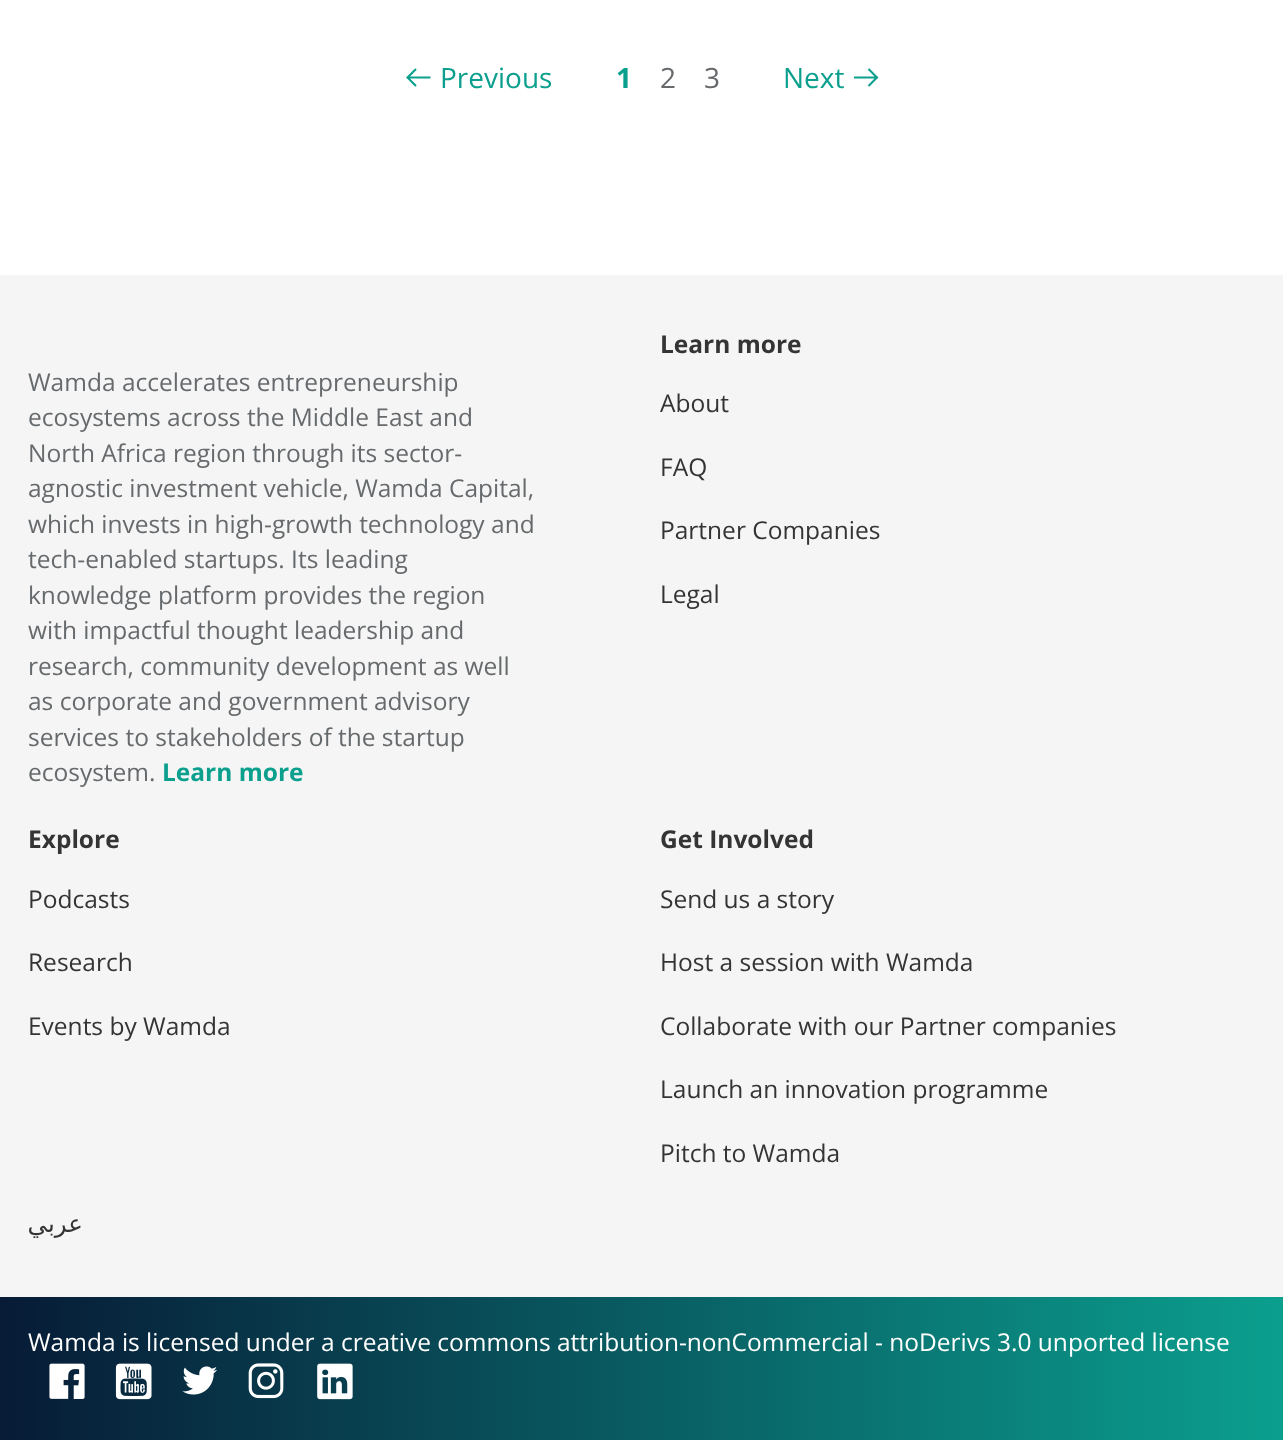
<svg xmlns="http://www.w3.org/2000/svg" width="1283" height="1440">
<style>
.a{font:28px Open Sans;fill:#0b9f8e}
.b{font:bold 28px Open Sans;fill:#0b9f8e}
.c{font:28px Open Sans;fill:#676a6c}
.d{font:24.5px Open Sans;fill:#676a6c}
.e{font:bold 24.5px Open Sans;fill:#0b9f8e}
.f{font:bold 24.5px Open Sans;fill:#343434}
.g{font:24.5px Open Sans;fill:#343434}
.h{font:24.5px DejaVu Sans;direction:rtl;fill:#343434}
.i{font:24.5px Open Sans;fill:#fff}
</style>
<defs>
<linearGradient id="g1" gradientUnits="userSpaceOnUse" x1="0" y1="1369" x2="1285" y2="1369"><stop offset="0" stop-color="#071b36"/><stop offset="1" stop-color="#0b9f8e"/></linearGradient>
</defs>
<rect width="100%" height="100%" fill="#fff"/>
<path fill="none" stroke="#0b9f8e" stroke-width="2.1" d="M430.5 77.5h-23m8.5-8.5l-8.5 8.5l8.5 8.5"/>
<path fill="none" stroke="#0b9f8e" stroke-width="2.1" d="M854 77.5h23m-8.5 8.5l8.5-8.5l-8.5-8.5"/>
<path fill="#f5f5f5" d="M0 275h1283v1022H0z"/>
<path fill="url(#g1)" d="M0 1297h1283v143H0z"/>
<image href="1.png" x="49" y="1363" width="36" height="36"/>
<image href="2.png" x="115" y="1363" width="37" height="37"/>
<image href="3.png" x="182" y="1366" width="35" height="29"/>
<image href="4.png" x="248" y="1363" width="36" height="36"/>
<image href="5.png" x="317" y="1363" width="36" height="37"/>
<text class="a" x="440" y="88">Previous</text>
<text class="b" x="616" y="88">1</text>
<text class="c" x="660" y="88">2</text>
<text class="c" x="704" y="88">3</text>
<text class="a" x="783" y="88">Next</text>
<text class="d" x="28" y="391">Wamda accelerates entrepreneurship</text>
<text class="d" x="28" y="426">ecosystems across the Middle East and</text>
<text class="d" x="28" y="462">North Africa region through its sector-</text>
<text class="d" x="28" y="497">agnostic investment vehicle, Wamda Capital,</text>
<text class="d" x="28" y="533">which invests in high-growth technology and</text>
<text class="d" x="28" y="568">tech-enabled startups. Its leading</text>
<text class="d" x="28" y="604">knowledge platform provides the region</text>
<text class="d" x="28" y="639">with impactful thought leadership and</text>
<text class="d" x="28" y="675">research, community development as well</text>
<text class="d" x="28" y="710">as corporate and government advisory</text>
<text class="d" x="28" y="746">services to stakeholders of the startup</text>
<text class="d" x="28" y="781">ecosystem.</text>
<text class="e" x="162" y="781">Learn more</text>
<text class="f" x="660" y="353">Learn more</text>
<text class="g" x="660" y="412">About</text>
<text class="g" x="660" y="476">FAQ</text>
<text class="g" x="660" y="539">Partner Companies</text>
<text class="g" x="660" y="603">Legal</text>
<text class="f" x="28" y="848">Explore</text>
<text class="g" x="28" y="908">Podcasts</text>
<text class="g" x="28" y="971">Research</text>
<text class="g" x="28" y="1035">Events by Wamda</text>
<text class="f" x="660" y="848">Get Involved</text>
<text class="g" x="660" y="908">Send us a story</text>
<text class="g" x="660" y="971">Host a session with Wamda</text>
<text class="g" x="660" y="1035">Collaborate with our Partner companies</text>
<text class="g" x="660" y="1098">Launch an innovation programme</text>
<text class="g" x="660" y="1162">Pitch to Wamda</text>
<text class="h" x="83" y="1232">عربي</text>
<text class="i" x="28" y="1351">Wamda is licensed under a creative commons attribution-nonCommercial - noDerivs 3.0 unported license</text>
</svg>
